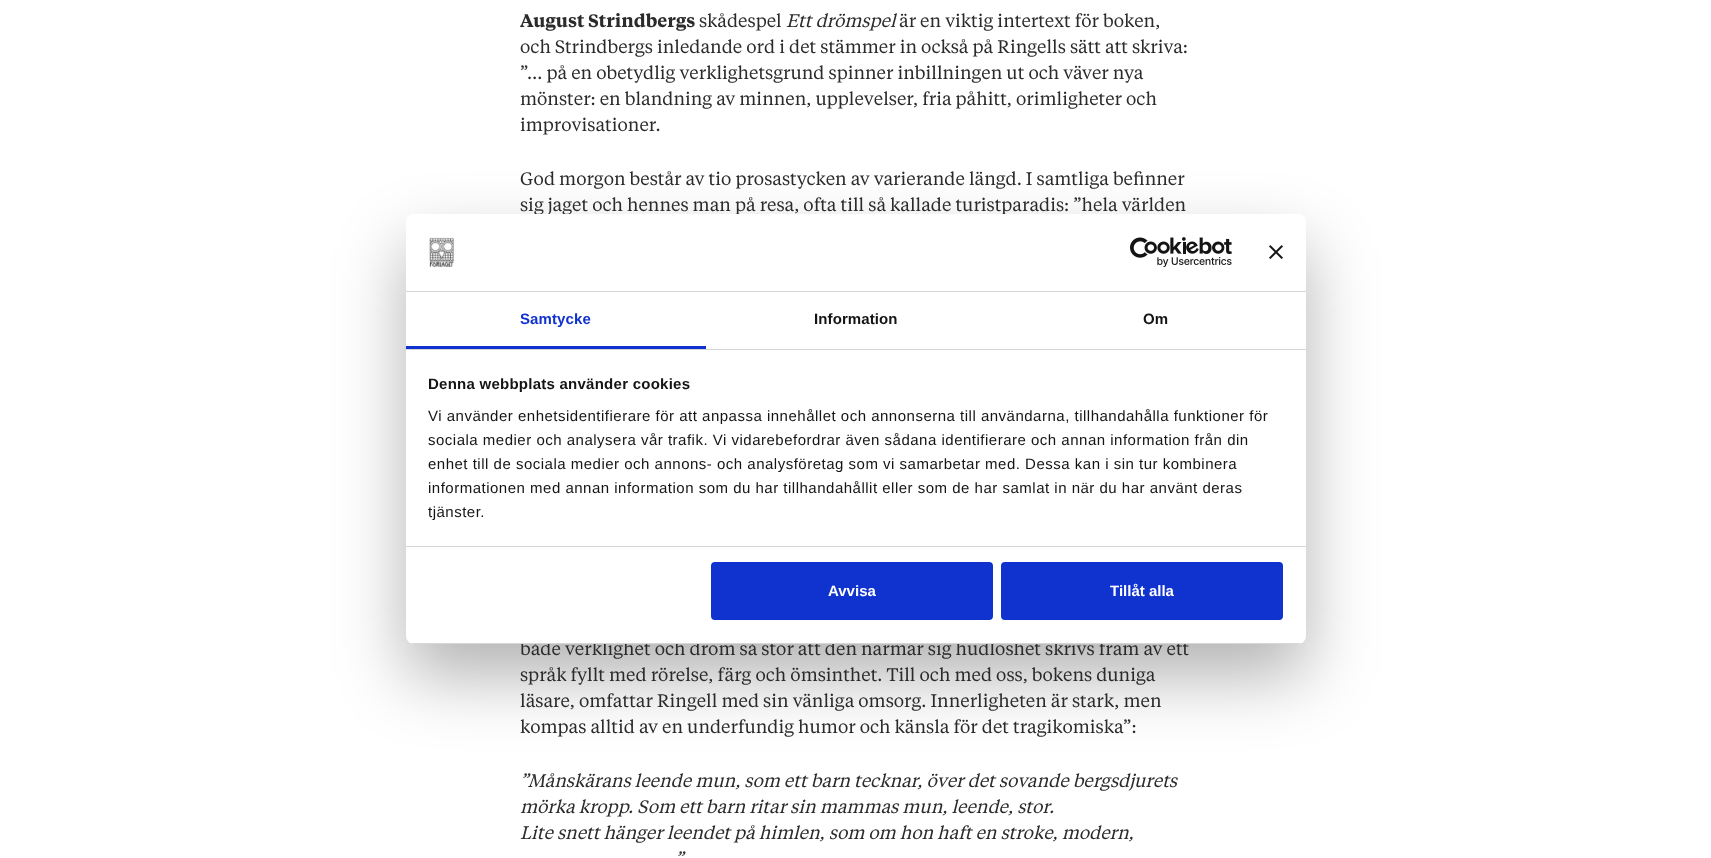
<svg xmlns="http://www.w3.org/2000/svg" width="1711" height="858">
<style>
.a{font:600 18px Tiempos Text;fill:#2b2b2b}
.b{font:18px Tiempos Text;fill:#2b2b2b}
.c{font:italic 18px Tiempos Text;fill:#2b2b2b}
.d{font:bold 15px Liberation Sans;letter-spacing:0.1px;fill:#1032cf}
.e{font:bold 15px Liberation Sans;letter-spacing:0.1px;fill:#141414}
.f{font:bold 15px Liberation Sans;letter-spacing:0.25px;fill:#141414}
.g{font:15px Liberation Sans;letter-spacing:0.5px;fill:#141414}
.h{font:bold 15px Liberation Sans;fill:#fff}
</style>
<defs>
<clipPath id="clip1"><rect x="406" y="214" width="900" height="430" rx="8"/></clipPath>
</defs>
<rect width="100%" height="100%" fill="#fff"/>
<rect fill="#0000004d" filter="blur(34px)" x="406" y="246" width="900" height="430" rx="8"/>
<text class="a" x="520" y="27">August Strindbergs</text>
<text class="b" x="699" y="27">skådespel</text>
<text class="c" x="786" y="27">Ett drömspel</text>
<text class="b" x="899" y="27">är en viktig intertext för boken,</text>
<text class="b" x="520" y="53">och Strindbergs inledande ord i det stämmer in också på Ringells sätt att skriva:</text>
<text class="b" x="520" y="79">”… på en obetydlig verklighetsgrund spinner inbillningen ut och väver nya</text>
<text class="b" x="520" y="105">mönster: en blandning av minnen, upplevelser, fria påhitt, orimligheter och</text>
<text class="b" x="520" y="131">improvisationer.</text>
<text class="b" x="520" y="185">God morgon består av tio prosastycken av varierande längd. I samtliga befinner</text>
<text class="b" x="520" y="211">sig jaget och hennes man på resa, ofta till så kallade turistparadis: ”hela världen</text>
<text class="b" x="520" y="655">både verklighet och dröm så stor att den närmar sig hudlöshet skrivs fram av ett</text>
<text class="b" x="520" y="681">språk fyllt med rörelse, färg och ömsinthet. Till och med oss, bokens duniga</text>
<text class="b" x="520" y="707">läsare, omfattar Ringell med sin vänliga omsorg. Innerligheten är stark, men</text>
<text class="b" x="520" y="733">kompas alltid av en underfundig humor och känsla för det tragikomiska”:</text>
<text class="c" x="520" y="787">”Månskärans leende mun, som ett barn tecknar, över det sovande bergsdjurets</text>
<text class="c" x="520" y="813">mörka kropp. Som ett barn ritar sin mammas mun, leende, stor.</text>
<text class="c" x="520" y="839">Lite snett hänger leendet på himlen, som om hon haft en stroke, modern,</text>
<text class="c" x="675" y="865">”</text>
<rect fill="#fff" x="406" y="214" width="900" height="430" rx="8"/>
<path fill="#d6d6d6" d="M406 291h900v1H406z"/>
<image href="1.png" x="429" y="237" width="25" height="30"/>
<image href="2.png" x="1130" y="237" width="102" height="30"/>
<image href="3.png" x="1269" y="245" width="14" height="14"/>
<path fill="#d6d6d6" d="M406 349h900v1H406z"/>
<path fill="#1032cf" d="M406 346h300v3H406z"/>
<text class="d" x="520" y="324">Samtycke</text>
<text class="e" x="814" y="324">Information</text>
<text class="e" x="1143" y="324">Om</text>
<path fill="#d6d6d6" d="M406 546h900v1H406z"/>
<text class="f" x="428" y="389">Denna webbplats använder cookies</text>
<text class="g" x="428" y="421">Vi använder enhetsidentifierare för att anpassa innehållet och annonserna till användarna, tillhandahålla funktioner för</text>
<text class="g" x="428" y="445">sociala medier och analysera vår trafik. Vi vidarebefordrar även sådana identifierare och annan information från din</text>
<text class="g" x="428" y="469">enhet till de sociala medier och annons- och analysföretag som vi samarbetar med. Dessa kan i sin tur kombinera</text>
<text class="g" x="428" y="493">informationen med annan information som du har tillhandahållit eller som de har samlat in när du har använt deras</text>
<text class="g" x="428" y="517">tjänster.</text>
<g clip-path="url(#clip1)">
<path fill="#d6d6d6" d="M406 643h900v1H406z"/>
</g>
<rect fill="#1032cf" stroke="#1032cf" stroke-width="2" x="712" y="563" width="280" height="56" rx="3"/>
<text class="h" x="828" y="596">Avvisa</text>
<rect fill="#1032cf" stroke="#1032cf" stroke-width="2" x="1002" y="563" width="280" height="56" rx="3"/>
<text class="h" x="1110" y="596">Tillåt alla</text>
</svg>
